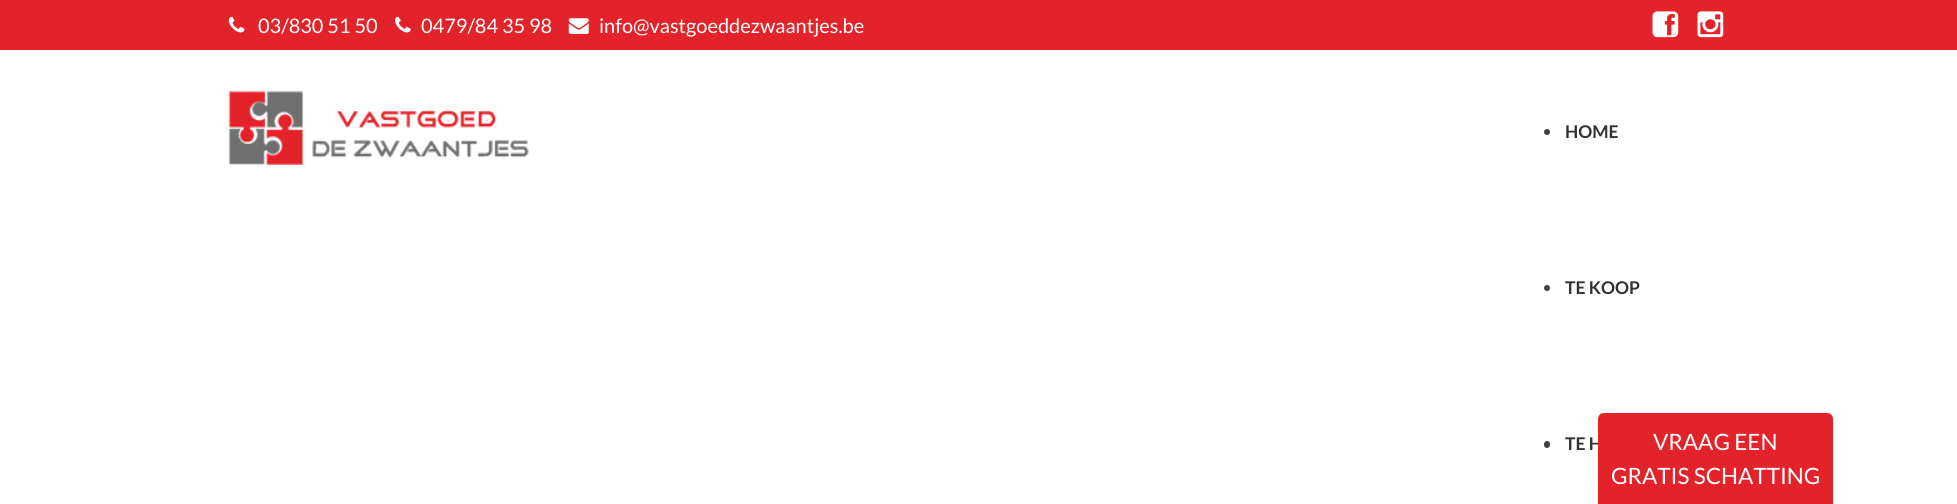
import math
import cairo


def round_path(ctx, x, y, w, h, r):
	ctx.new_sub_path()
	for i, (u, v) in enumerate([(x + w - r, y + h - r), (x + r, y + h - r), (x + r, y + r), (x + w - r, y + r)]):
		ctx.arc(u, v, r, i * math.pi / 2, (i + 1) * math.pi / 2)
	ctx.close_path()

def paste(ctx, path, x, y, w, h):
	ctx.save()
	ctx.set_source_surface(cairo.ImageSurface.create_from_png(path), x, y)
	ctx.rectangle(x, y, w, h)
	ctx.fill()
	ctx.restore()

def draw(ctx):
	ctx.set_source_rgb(1, 1, 1)
	ctx.paint()
	ctx.set_source_rgb(0.894, 0.133, 0.161)
	ctx.rectangle(0, 0, 1957, 50)
	ctx.fill()
	paste(ctx, 'media/1.png', 228, 16, 17, 17)
	ctx.select_font_face('Lato')
	ctx.set_font_size(20)
	ctx.set_source_rgb(1, 1, 1)
	ctx.move_to(258, 33)
	ctx.show_text('03/830 51 50')
	paste(ctx, 'media/2.png', 395, 16, 16, 17)
	ctx.move_to(421, 33)
	ctx.show_text('0479/84 35 98')
	paste(ctx, 'media/3.png', 568, 18, 21, 16)
	ctx.move_to(599, 33)
	ctx.show_text('info@vastgoeddezwaantjes.be')
	paste(ctx, 'media/4.png', 1652, 11, 27, 27)
	paste(ctx, 'media/5.png', 1697, 11, 27, 27)
	paste(ctx, 'media/6.png', 228, 91, 301, 74)
	ctx.set_source_rgb(0.259, 0.259, 0.259)
	ctx.arc(1547, 132, 3, 0, 2 * math.pi)
	ctx.fill()
	ctx.select_font_face('Lato', cairo.FONT_SLANT_NORMAL, cairo.FONT_WEIGHT_BOLD)
	ctx.set_font_size(17.5)
	ctx.set_source_rgb(0.196, 0.196, 0.196)
	ctx.move_to(1565, 138)
	ctx.show_text('HOME')
	ctx.set_source_rgb(0.259, 0.259, 0.259)
	ctx.new_path()
	ctx.arc(1547, 288, 3, 0, 2 * math.pi)
	ctx.fill()
	ctx.set_source_rgb(0.196, 0.196, 0.196)
	ctx.move_to(1565, 294)
	ctx.show_text('TE KOOP')
	ctx.set_source_rgb(0.259, 0.259, 0.259)
	round_path(ctx, 1544, 441, 6, 7, 3)
	ctx.fill()
	ctx.set_source_rgb(0.196, 0.196, 0.196)
	ctx.move_to(1565, 450)
	ctx.show_text('TE H')
	ctx.set_source_rgb(0.894, 0.133, 0.161)
	ctx.new_path()
	ctx.move_to(1604, 413)
	ctx.line_to(1827, 413)
	ctx.curve_to(1830.5, 413, 1833, 415.5, 1833, 419)
	ctx.line_to(1833, 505)
	ctx.line_to(1598, 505)
	ctx.line_to(1598, 419)
	ctx.curve_to(1598, 415.5, 1600.5, 413, 1604, 413)
	ctx.close_path()
	ctx.fill()
	ctx.select_font_face('Lato')
	ctx.set_font_size(22.5)
	ctx.set_source_rgb(1, 1, 1)
	ctx.move_to(1653, 450)
	ctx.show_text('VRAAG EEN')
	ctx.move_to(1611, 484)
	ctx.show_text('GRATIS SCHATTING')


surface = cairo.ImageSurface(cairo.FORMAT_RGB24, 1957, 504)
ctx = cairo.Context(surface)
options = cairo.FontOptions()
options.set_hint_metrics(cairo.HINT_METRICS_OFF)
options.set_hint_style(cairo.HINT_STYLE_NONE)
ctx.set_font_options(options)
ctx.set_miter_limit(4)
draw(ctx)
surface.write_to_png('image.png')
